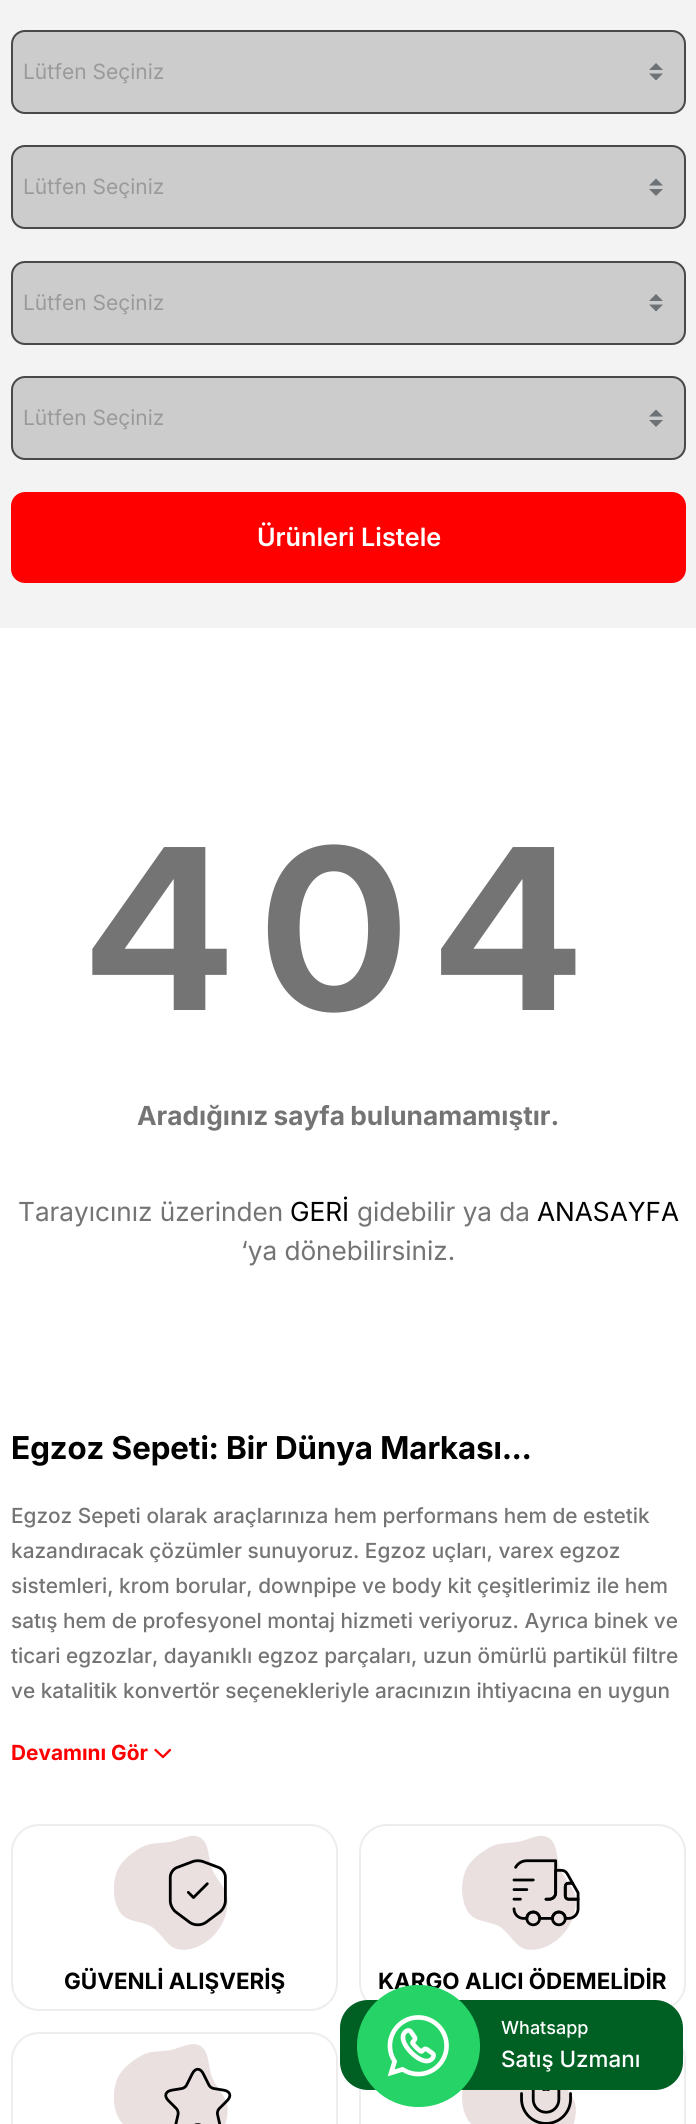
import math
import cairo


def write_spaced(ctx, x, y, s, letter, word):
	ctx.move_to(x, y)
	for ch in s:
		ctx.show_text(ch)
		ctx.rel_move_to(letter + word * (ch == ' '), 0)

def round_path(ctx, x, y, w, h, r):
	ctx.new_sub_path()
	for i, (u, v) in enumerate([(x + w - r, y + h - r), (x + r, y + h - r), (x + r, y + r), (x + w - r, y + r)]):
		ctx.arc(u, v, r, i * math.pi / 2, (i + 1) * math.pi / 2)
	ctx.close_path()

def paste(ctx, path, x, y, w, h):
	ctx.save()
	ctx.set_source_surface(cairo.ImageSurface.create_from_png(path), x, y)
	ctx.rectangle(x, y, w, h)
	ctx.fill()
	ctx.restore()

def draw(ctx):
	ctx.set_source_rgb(1, 1, 1)
	ctx.paint()
	ctx.set_source_rgb(0.953, 0.953, 0.953)
	ctx.rectangle(0, 0, 696, 628)
	ctx.fill()
	ctx.set_source_rgb(0.8, 0.8, 0.8)
	round_path(ctx, 11, 30, 675, 84, 14)
	ctx.fill()
	ctx.set_source_rgb(0.427, 0.447, 0.463)
	ctx.new_path()
	ctx.move_to(656, 63)
	ctx.line_to(649, 70)
	ctx.line_to(663, 70)
	ctx.close_path()
	ctx.move_to(656, 80.5)
	ctx.line_to(649, 73.5)
	ctx.line_to(663, 73.5)
	ctx.close_path()
	ctx.fill()
	round_path(ctx, 12, 31, 673, 82, 13)
	ctx.set_source_rgb(0.286, 0.286, 0.286)
	ctx.stroke()
	ctx.select_font_face('Inter')
	ctx.set_font_size(21)
	ctx.set_source_rgb(0.604, 0.604, 0.604)
	ctx.move_to(23, 79)
	ctx.show_text('Lütfen Seçiniz')
	ctx.set_source_rgb(0.8, 0.8, 0.8)
	round_path(ctx, 11, 145, 675, 84, 14)
	ctx.fill()
	ctx.set_source_rgb(0.427, 0.447, 0.463)
	ctx.new_path()
	ctx.move_to(656, 178.5)
	ctx.line_to(649, 185.5)
	ctx.line_to(663, 185.5)
	ctx.close_path()
	ctx.move_to(656, 196)
	ctx.line_to(649, 189)
	ctx.line_to(663, 189)
	ctx.close_path()
	ctx.fill()
	round_path(ctx, 12, 146, 673, 82, 13)
	ctx.set_source_rgb(0.286, 0.286, 0.286)
	ctx.stroke()
	ctx.set_source_rgb(0.604, 0.604, 0.604)
	ctx.move_to(23, 194)
	ctx.show_text('Lütfen Seçiniz')
	ctx.set_source_rgb(0.8, 0.8, 0.8)
	round_path(ctx, 11, 261, 675, 84, 14)
	ctx.fill()
	ctx.set_source_rgb(0.427, 0.447, 0.463)
	ctx.new_path()
	ctx.move_to(656, 294)
	ctx.line_to(649, 301)
	ctx.line_to(663, 301)
	ctx.close_path()
	ctx.move_to(656, 311.5)
	ctx.line_to(649, 304.5)
	ctx.line_to(663, 304.5)
	ctx.close_path()
	ctx.fill()
	round_path(ctx, 12, 262, 673, 82, 13)
	ctx.set_source_rgb(0.286, 0.286, 0.286)
	ctx.stroke()
	ctx.set_source_rgb(0.604, 0.604, 0.604)
	ctx.move_to(23, 310)
	ctx.show_text('Lütfen Seçiniz')
	ctx.set_source_rgb(0.8, 0.8, 0.8)
	round_path(ctx, 11, 376, 675, 84, 14)
	ctx.fill()
	ctx.set_source_rgb(0.427, 0.447, 0.463)
	ctx.new_path()
	ctx.move_to(656, 409.5)
	ctx.line_to(649, 416.5)
	ctx.line_to(663, 416.5)
	ctx.close_path()
	ctx.move_to(656, 427)
	ctx.line_to(649, 420)
	ctx.line_to(663, 420)
	ctx.close_path()
	ctx.fill()
	round_path(ctx, 12, 377, 673, 82, 13)
	ctx.set_source_rgb(0.286, 0.286, 0.286)
	ctx.stroke()
	ctx.set_source_rgb(0.604, 0.604, 0.604)
	ctx.move_to(23, 425)
	ctx.show_text('Lütfen Seçiniz')
	ctx.set_source_rgb(1, 0, 0)
	round_path(ctx, 11, 492, 675, 91, 14)
	ctx.fill()
	ctx.select_font_face('Inter SemiBold')
	ctx.set_font_size(25.25)
	ctx.set_source_rgb(1, 1, 1)
	ctx.move_to(257, 546)
	ctx.show_text('Ürünleri Listele')
	ctx.select_font_face('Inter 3', cairo.FONT_SLANT_NORMAL, cairo.FONT_WEIGHT_BOLD)
	ctx.set_font_size(224)
	ctx.set_source_rgb(0.455, 0.455, 0.455)
	write_spaced(ctx, 86, 1010, '404', 28, 0)
	ctx.select_font_face('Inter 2', cairo.FONT_SLANT_NORMAL, cairo.FONT_WEIGHT_BOLD)
	ctx.set_font_size(26.25)
	write_spaced(ctx, 137, 1125, 'Aradığınız sayfa bulunamamıştır.', 0, -1)
	ctx.select_font_face('Inter 2')
	ctx.move_to(18, 1221)
	ctx.show_text('Tarayıcınız üzerinden')
	ctx.set_source_rgb(0, 0, 0)
	ctx.move_to(290, 1221)
	ctx.show_text('GER')
	ctx.select_font_face('Inter')
	ctx.move_to(342, 1221)
	ctx.show_text('İ')
	ctx.select_font_face('Inter 2')
	ctx.set_source_rgb(0.455, 0.455, 0.455)
	ctx.move_to(357, 1221)
	ctx.show_text('gidebilir ya da')
	ctx.set_source_rgb(0, 0, 0)
	ctx.move_to(537, 1221)
	ctx.show_text('ANASAYFA')
	ctx.set_source_rgb(0.455, 0.455, 0.455)
	ctx.move_to(241, 1260)
	ctx.show_text('‘ya dönebilirsiniz.')
	ctx.select_font_face('Inter', cairo.FONT_SLANT_NORMAL, cairo.FONT_WEIGHT_BOLD)
	ctx.set_font_size(31.5)
	ctx.set_source_rgb(0, 0, 0)
	ctx.move_to(11, 1459)
	ctx.show_text('Egzoz Sepeti: Bir Dünya Markası...')
	ctx.select_font_face('Inter Medium')
	ctx.set_font_size(20.8)
	ctx.set_source_rgb(0.455, 0.455, 0.455)
	for x, y, s in [
		(11, 1523, 'Egzoz Sepeti olarak araçlarınıza hem performans hem de estetik'),
		(11, 1558, 'kazandıracak çözümler sunuyoruz. Egzoz uçları, varex egzoz'),
		(11, 1593, 'sistemleri, krom borular, downpipe ve body kit çeşitlerimiz ile hem'),
		(11, 1628, 'satış hem de profesyonel montaj hizmeti veriyoruz. Ayrıca binek ve'),
	]:
		ctx.move_to(x, y)
		ctx.show_text(s)
	ctx.save()
	ctx.rectangle(11, 1500, 675, 208)
	ctx.clip()
	ctx.move_to(11, 1663)
	ctx.show_text('ticari egzozlar, dayanıklı egzoz parçaları, uzun ömürlü partikül filtre')
	ctx.restore()
	ctx.move_to(11, 1698)
	ctx.show_text('ve katalitik konvertör seçenekleriyle aracınızın ihtiyacına en uygun')
	ctx.select_font_face('Inter 2', cairo.FONT_SLANT_NORMAL, cairo.FONT_WEIGHT_BOLD)
	ctx.set_source_rgb(1, 0, 0)
	ctx.move_to(11, 1760)
	ctx.show_text('Devamını Gör')
	ctx.new_path()
	ctx.move_to(170, 1750)
	ctx.line_to(163, 1757)
	ctx.line_to(155.5, 1750)
	ctx.set_line_width(2.3)
	ctx.set_line_cap(cairo.LINE_CAP_ROUND)
	ctx.set_line_join(cairo.LINE_JOIN_ROUND)
	ctx.stroke()
	round_path(ctx, 12, 1825, 325, 185, 27)
	ctx.set_source_rgb(0.929, 0.929, 0.929)
	ctx.set_line_width(2)
	ctx.set_line_cap(cairo.LINE_CAP_BUTT)
	ctx.set_line_join(cairo.LINE_JOIN_MITER)
	ctx.stroke()
	paste(ctx, 'media/1.png', 114, 1835, 114, 115)
	ctx.set_font_size(22.4)
	ctx.set_source_rgb(0, 0, 0)
	ctx.move_to(64, 1989)
	ctx.show_text('GÜVENLİ ALIŞVERİŞ')
	round_path(ctx, 360, 1825, 325, 185, 27)
	ctx.set_source_rgb(0.929, 0.929, 0.929)
	ctx.stroke()
	paste(ctx, 'media/2.png', 462, 1835, 118, 115)
	ctx.set_source_rgb(0, 0, 0)
	ctx.move_to(378, 1989)
	ctx.show_text('KARGO ALICI ÖDEMELİDİR')
	round_path(ctx, 12, 2033, 325, 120, 27)
	ctx.set_source_rgb(0.929, 0.929, 0.929)
	ctx.stroke()
	paste(ctx, 'media/3.png', 114, 2044, 118, 80)
	round_path(ctx, 360, 2033, 325, 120, 27)
	ctx.stroke()
	paste(ctx, 'media/4.png', 462, 2090, 114, 34)
	ctx.set_source_rgb(0, 0.376, 0.141)
	round_path(ctx, 340, 2000, 343, 90, 28)
	ctx.fill()
	ctx.set_source_rgb(0.145, 0.827, 0.4)
	round_path(ctx, 357, 1985, 123, 122, 61)
	ctx.fill()
	paste(ctx, 'media/5.png', 387, 2015, 62, 62)
	ctx.select_font_face('Inter Medium')
	ctx.set_font_size(18)
	ctx.set_source_rgb(1, 1, 1)
	ctx.move_to(501, 2034)
	ctx.show_text('Whatsapp')
	ctx.set_font_size(22.4)
	ctx.move_to(501, 2067)
	ctx.show_text('Satış Uzmanı')


surface = cairo.ImageSurface(cairo.FORMAT_RGB24, 696, 2124)
ctx = cairo.Context(surface)
options = cairo.FontOptions()
options.set_hint_metrics(cairo.HINT_METRICS_OFF)
options.set_hint_style(cairo.HINT_STYLE_NONE)
ctx.set_font_options(options)
ctx.set_miter_limit(4)
draw(ctx)
surface.write_to_png('image.png')
